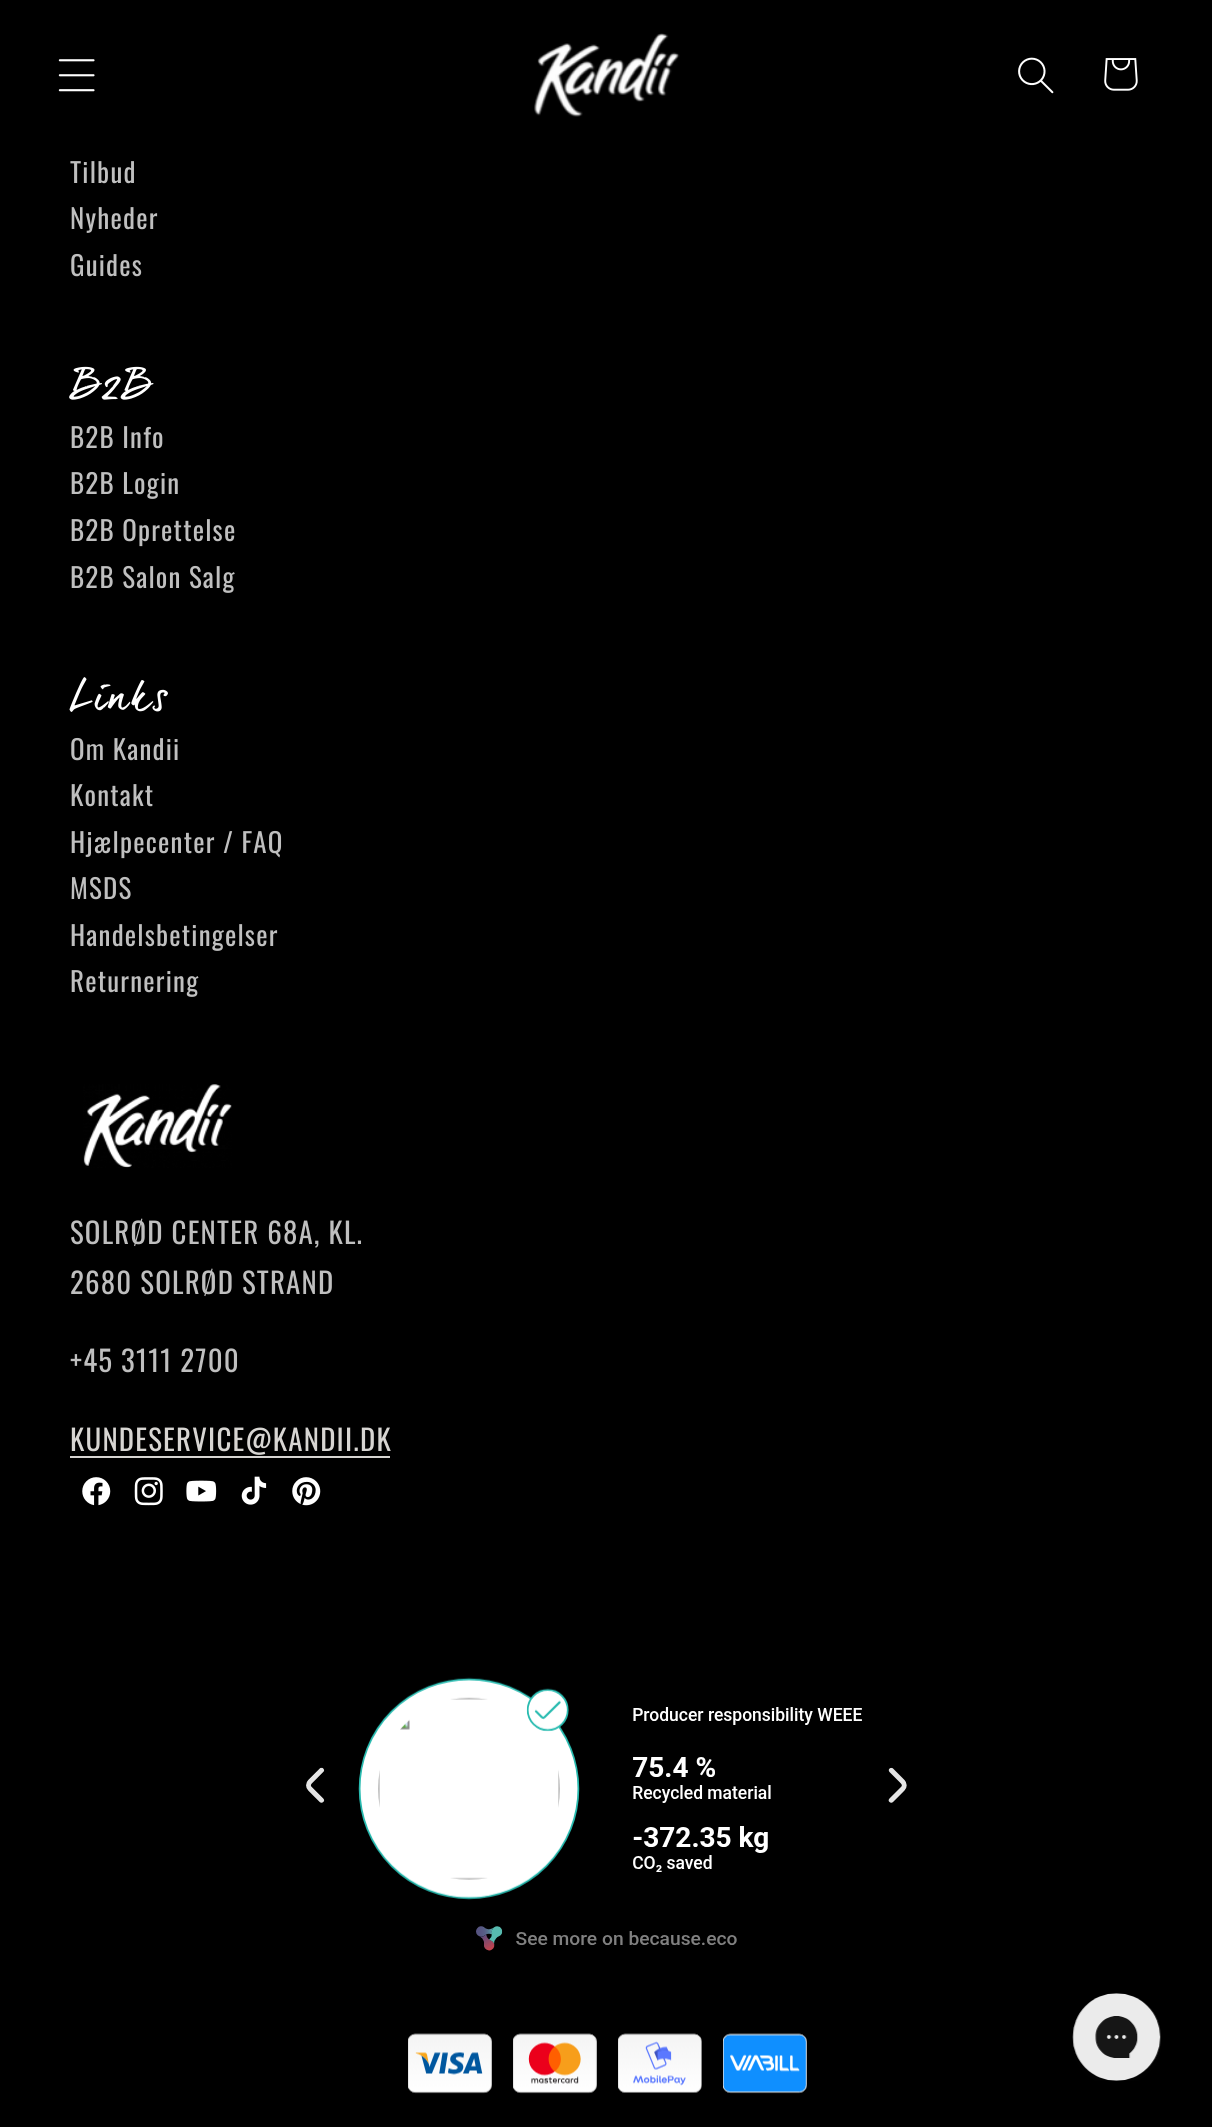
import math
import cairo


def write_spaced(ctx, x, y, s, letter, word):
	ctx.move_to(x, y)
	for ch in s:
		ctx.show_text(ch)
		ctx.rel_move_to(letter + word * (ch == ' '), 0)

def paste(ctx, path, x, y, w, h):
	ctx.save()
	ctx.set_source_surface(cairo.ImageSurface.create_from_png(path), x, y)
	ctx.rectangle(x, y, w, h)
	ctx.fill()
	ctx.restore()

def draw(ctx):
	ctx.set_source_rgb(0, 0, 0)
	ctx.paint()
	paste(ctx, 'media/1.png', 58, 59, 37, 33)
	paste(ctx, 'media/2.png', 534, 33, 146, 84)
	paste(ctx, 'media/3.png', 1018, 57, 36, 37)
	paste(ctx, 'media/4.png', 1104, 58, 34, 33)
	ctx.select_font_face('Oswald')
	ctx.set_font_size(27)
	ctx.set_source_rgb(0.749, 0.749, 0.749)
	for x, y, s in [
		(70, 183, 'Tilbud'),
		(70, 229, 'Nyheder'),
		(70, 276, 'Guides'),
	]:
		write_spaced(ctx, x, y, s, 1.2, 0)
	ctx.select_font_face('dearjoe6')
	ctx.set_font_size(39)
	ctx.set_source_rgb(1, 1, 1)
	write_spaced(ctx, 70, 398, 'B2B', 1.5, 0)
	ctx.select_font_face('Oswald')
	ctx.set_font_size(27)
	ctx.set_source_rgb(0.749, 0.749, 0.749)
	for x, y, s in [
		(70, 448, 'B2B Info'),
		(70, 494, 'B2B Login'),
		(70, 541, 'B2B Oprettelse'),
		(70, 588, 'B2B Salon Salg'),
	]:
		write_spaced(ctx, x, y, s, 1.2, 0)
	ctx.select_font_face('dearjoe6')
	ctx.set_font_size(39)
	ctx.set_source_rgb(1, 1, 1)
	write_spaced(ctx, 70, 709, 'Links', 1.5, 0)
	ctx.select_font_face('Oswald')
	ctx.set_font_size(27)
	ctx.set_source_rgb(0.749, 0.749, 0.749)
	for x, y, s in [
		(70, 760, 'Om Kandii'),
		(70, 806, 'Kontakt'),
		(70, 853, 'Hjælpecenter / FAQ'),
		(70, 899, 'MSDS'),
		(70, 946, 'Handelsbetingelser'),
		(70, 992, 'Returnering'),
	]:
		write_spaced(ctx, x, y, s, 1.2, 0)
	paste(ctx, 'media/5.png', 83, 1084, 149, 84)
	ctx.set_font_size(28.9)
	for x, y, s in [
		(70, 1244, 'SOLRØD CENTER 68A, KL.'),
		(70, 1294, '2680 SOLRØD STRAND'),
		(70, 1372, '+45 3111 2700'),
	]:
		write_spaced(ctx, x, y, s, 1.2, 0)
	ctx.set_source_rgb(0.843, 0.835, 0.824)
	write_spaced(ctx, 70, 1451, 'KUNDESERVICE@KANDII.DK', 1.2, 0)
	ctx.rectangle(70, 1456, 320, 2)
	ctx.fill()
	paste(ctx, 'media/6.png', 82, 1477, 29, 29)
	paste(ctx, 'media/7.png', 134, 1477, 29, 29)
	paste(ctx, 'media/8.png', 186, 1480, 31, 22)
	paste(ctx, 'media/9.png', 241, 1476, 26, 29)
	paste(ctx, 'media/10.png', 292, 1477, 29, 29)
	paste(ctx, 'media/11.png', 306, 1677, 601, 274)
	paste(ctx, 'media/12.png', 408, 2033, 399, 61)
	paste(ctx, 'media/13.png', 1072, 1993, 89, 88)


surface = cairo.ImageSurface(cairo.FORMAT_RGB24, 1212, 2127)
ctx = cairo.Context(surface)
options = cairo.FontOptions()
options.set_hint_metrics(cairo.HINT_METRICS_OFF)
options.set_hint_style(cairo.HINT_STYLE_NONE)
ctx.set_font_options(options)
ctx.set_miter_limit(4)
draw(ctx)
surface.write_to_png('image.png')
